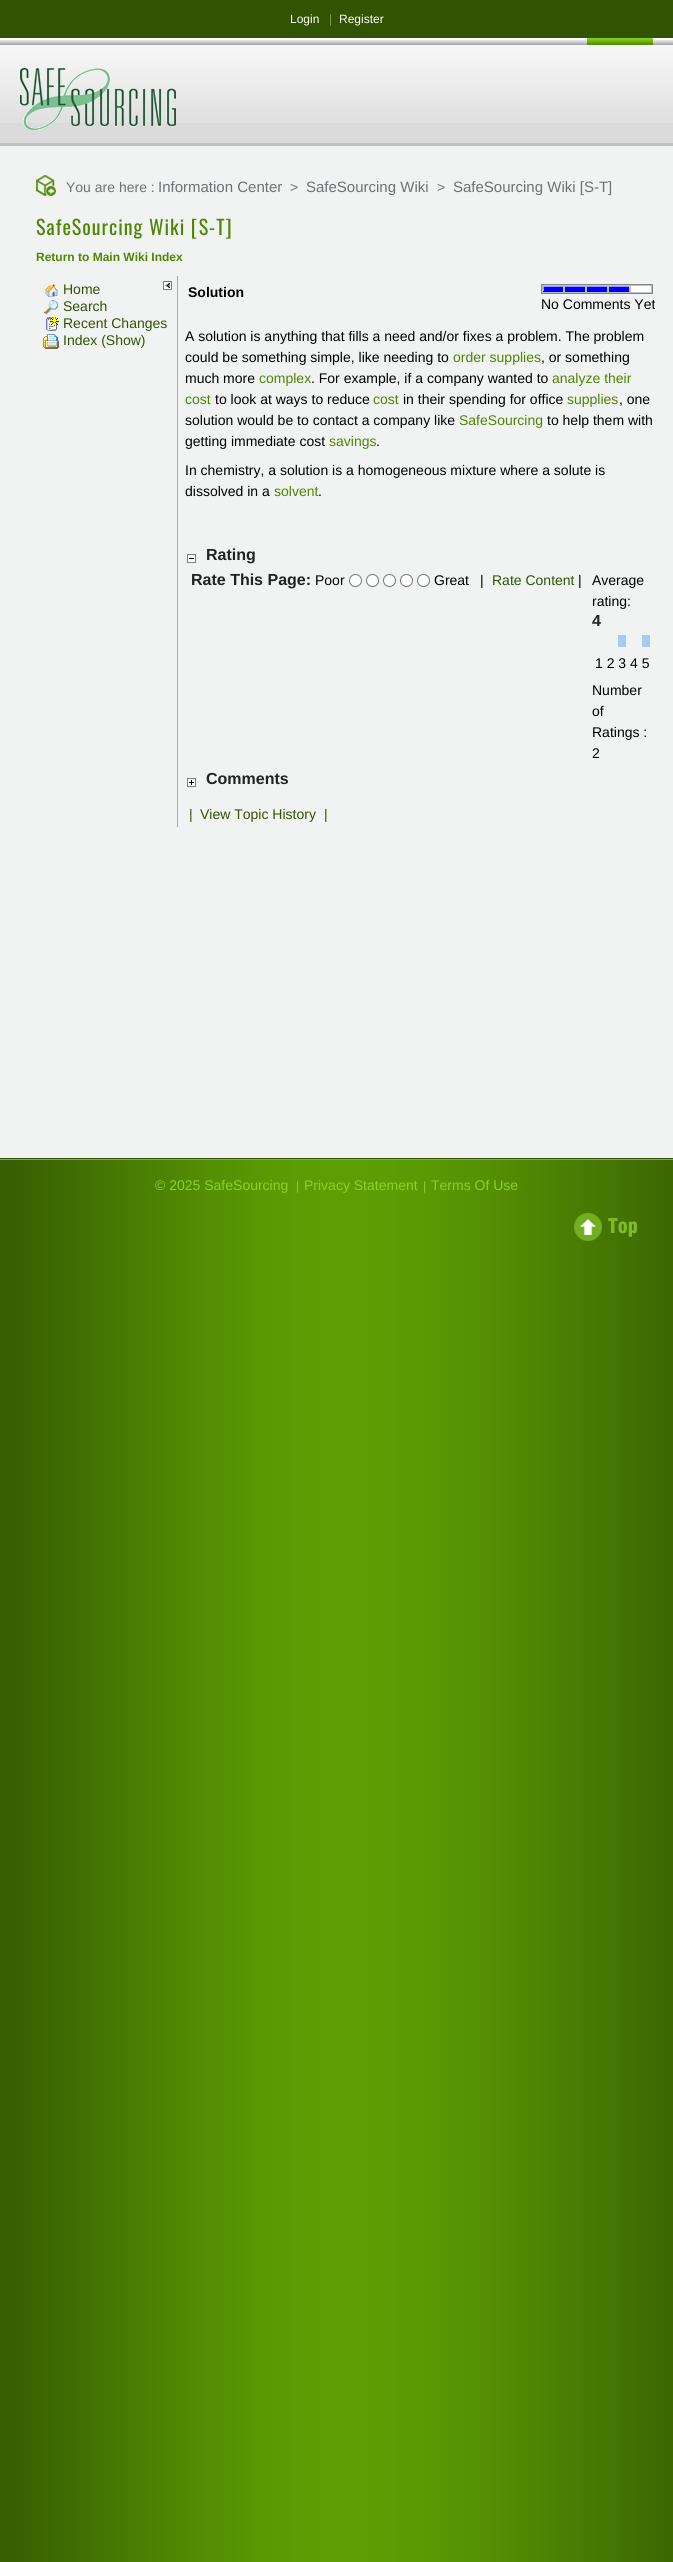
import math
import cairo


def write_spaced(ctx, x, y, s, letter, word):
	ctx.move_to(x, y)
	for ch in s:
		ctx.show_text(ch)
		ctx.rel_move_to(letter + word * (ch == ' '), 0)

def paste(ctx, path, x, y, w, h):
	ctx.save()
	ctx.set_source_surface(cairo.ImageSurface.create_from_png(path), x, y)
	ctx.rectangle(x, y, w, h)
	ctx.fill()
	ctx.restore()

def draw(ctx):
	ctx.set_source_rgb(1, 1, 1)
	ctx.paint()
	paste(ctx, 'media/1.png', 0, 1160, 673, 1402)
	ctx.set_source_rgb(0.192, 0.329, 0.008)
	ctx.rectangle(0, 0, 673, 38)
	ctx.fill()
	ctx.select_font_face('Liberation Sans')
	ctx.set_font_size(12)
	ctx.set_source_rgb(1, 1, 1)
	ctx.move_to(290, 23)
	ctx.show_text('Login')
	ctx.set_source_rgb(0.439, 0.651, 0.157)
	ctx.move_to(329, 23)
	ctx.show_text('|')
	ctx.set_source_rgb(1, 1, 1)
	ctx.move_to(339, 23)
	ctx.show_text('Register')
	ctx.set_source_rgb(0.859, 0.859, 0.859)
	ctx.rectangle(0, 123, 673, 20)
	ctx.fill()
	paste(ctx, 'media/2.png', 0, 38, 673, 85)
	paste(ctx, 'media/3.png', 587, 38, 66, 7)
	paste(ctx, 'media/4.png', 20, 68, 156, 62)
	ctx.set_source_rgb(0.945, 0.949, 0.949)
	ctx.rectangle(0, 146, 673, 1012)
	ctx.fill()
	ctx.set_source_rgb(0.757, 0.761, 0.769)
	ctx.rectangle(0, 143, 673, 3)
	ctx.fill()
	paste(ctx, 'media/5.png', 36, 175, 20, 21)
	ctx.set_font_size(14)
	ctx.set_source_rgb(0.424, 0.447, 0.455)
	ctx.move_to(66, 192)
	ctx.show_text('You are here :')
	ctx.set_font_size(15)
	ctx.move_to(158, 192)
	ctx.show_text('Information Center')
	ctx.set_font_size(14)
	ctx.move_to(290, 192)
	ctx.show_text('>')
	ctx.set_font_size(15)
	ctx.move_to(306, 192)
	ctx.show_text('SafeSourcing Wiki')
	ctx.set_font_size(14)
	ctx.move_to(437, 192)
	ctx.show_text('>')
	ctx.set_font_size(15)
	ctx.move_to(453, 192)
	ctx.show_text('SafeSourcing Wiki [S-T]')
	ctx.select_font_face('Oswald')
	ctx.set_font_size(20)
	ctx.set_source_rgb(0.31, 0.525, 0.012)
	write_spaced(ctx, 36, 235, 'SafeSourcing Wiki [S-T]', 1, 0)
	ctx.select_font_face('Liberation Sans', cairo.FONT_SLANT_NORMAL, cairo.FONT_WEIGHT_BOLD)
	ctx.set_font_size(12)
	ctx.move_to(36, 261)
	ctx.show_text('Return to Main Wiki Index')
	paste(ctx, 'media/6.png', 45, 284, 13, 13)
	ctx.select_font_face('Liberation Sans')
	ctx.set_font_size(14)
	ctx.set_source_rgb(0.192, 0.329, 0.008)
	ctx.move_to(63, 294)
	ctx.show_text('Home')
	paste(ctx, 'media/7.png', 44, 300, 14, 14)
	ctx.move_to(63, 311)
	ctx.show_text('Search')
	paste(ctx, 'media/8.png', 43, 316, 16, 15)
	ctx.move_to(63, 328)
	ctx.show_text('Recent Changes')
	paste(ctx, 'media/9.png', 43, 334, 16, 15)
	ctx.move_to(63, 345)
	ctx.show_text('Index (Show)')
	ctx.set_source_rgb(0.663, 0.663, 0.663)
	ctx.rectangle(177, 276, 1, 551)
	ctx.fill()
	paste(ctx, 'media/10.png', 163, 281, 9, 9)
	ctx.select_font_face('Liberation Sans', cairo.FONT_SLANT_NORMAL, cairo.FONT_WEIGHT_BOLD)
	ctx.set_source_rgb(0, 0, 0)
	ctx.move_to(188, 297)
	ctx.show_text('Solution')
	paste(ctx, 'media/11.png', 541, 284, 112, 10)
	ctx.select_font_face('Liberation Sans')
	for x, y, s in [
		(541, 309, 'No Comments Yet'),
		(185, 341, 'A solution is anything that fills a need and/or fixes a problem. The problem'),
		(185, 362, 'could be something simple, like needing to'),
	]:
		ctx.move_to(x, y)
		ctx.show_text(s)
	ctx.set_source_rgb(0.31, 0.525, 0.012)
	ctx.move_to(453, 362)
	ctx.show_text('order supplies')
	ctx.set_source_rgb(0, 0, 0)
	ctx.move_to(541, 362)
	ctx.show_text(', or something')
	ctx.move_to(185, 383)
	ctx.show_text('much more')
	ctx.set_source_rgb(0.31, 0.525, 0.012)
	ctx.move_to(259, 383)
	ctx.show_text('complex')
	ctx.set_source_rgb(0, 0, 0)
	ctx.move_to(311, 383)
	ctx.show_text('. For example, if a company wanted to')
	ctx.set_source_rgb(0.31, 0.525, 0.012)
	ctx.move_to(552, 383)
	ctx.show_text('analyze their')
	ctx.move_to(185, 404)
	ctx.show_text('cost')
	ctx.set_source_rgb(0, 0, 0)
	ctx.move_to(215, 404)
	ctx.show_text('to look at ways to reduce')
	ctx.set_source_rgb(0.31, 0.525, 0.012)
	ctx.move_to(373, 404)
	ctx.show_text('cost')
	ctx.set_source_rgb(0, 0, 0)
	ctx.move_to(403, 404)
	ctx.show_text('in their spending for office')
	ctx.set_source_rgb(0.31, 0.525, 0.012)
	ctx.move_to(567, 404)
	ctx.show_text('supplies')
	ctx.set_source_rgb(0, 0, 0)
	ctx.move_to(619, 404)
	ctx.show_text(', one')
	ctx.move_to(185, 425)
	ctx.show_text('solution would be to contact a company like')
	ctx.set_source_rgb(0.31, 0.525, 0.012)
	ctx.move_to(459, 425)
	ctx.show_text('SafeSourcing')
	ctx.set_source_rgb(0, 0, 0)
	ctx.move_to(547, 425)
	ctx.show_text('to help them with')
	ctx.move_to(185, 446)
	ctx.show_text('getting immediate cost')
	ctx.set_source_rgb(0.31, 0.525, 0.012)
	ctx.move_to(329, 446)
	ctx.show_text('savings')
	ctx.set_source_rgb(0, 0, 0)
	for x, y, s in [
		(376, 446, '.'),
		(185, 475, 'In chemistry, a solution is a homogeneous mixture where a solute is'),
		(185, 496, 'dissolved in a'),
	]:
		ctx.move_to(x, y)
		ctx.show_text(s)
	ctx.set_source_rgb(0.31, 0.525, 0.012)
	ctx.move_to(274, 496)
	ctx.show_text('solvent')
	ctx.set_source_rgb(0, 0, 0)
	ctx.move_to(318, 496)
	ctx.show_text('.')
	paste(ctx, 'media/12.png', 187, 554, 9, 9)
	ctx.select_font_face('Liberation Sans', cairo.FONT_SLANT_NORMAL, cairo.FONT_WEIGHT_BOLD)
	ctx.set_font_size(16)
	ctx.set_source_rgb(0.133, 0.133, 0.133)
	ctx.move_to(206, 560)
	ctx.show_text('Rating')
	ctx.move_to(191, 585)
	ctx.show_text('Rate This Page:')
	ctx.select_font_face('Liberation Sans')
	ctx.set_font_size(14)
	ctx.set_source_rgb(0, 0, 0)
	ctx.move_to(315, 585)
	ctx.show_text('Poor')
	ctx.set_source_rgb(1, 1, 1)
	ctx.new_path()
	ctx.arc(355.5, 580.5, 6, 0, 2 * math.pi)
	ctx.fill_preserve()
	ctx.set_source_rgb(0.463, 0.463, 0.463)
	ctx.set_line_width(1)
	ctx.stroke()
	ctx.set_source_rgb(1, 1, 1)
	ctx.arc(372.5, 580.5, 6, 0, 2 * math.pi)
	ctx.fill_preserve()
	ctx.set_source_rgb(0.463, 0.463, 0.463)
	ctx.stroke()
	ctx.set_source_rgb(1, 1, 1)
	ctx.arc(389.5, 580.5, 6, 0, 2 * math.pi)
	ctx.fill_preserve()
	ctx.set_source_rgb(0.463, 0.463, 0.463)
	ctx.stroke()
	ctx.set_source_rgb(1, 1, 1)
	ctx.arc(406.5, 580.5, 6, 0, 2 * math.pi)
	ctx.fill_preserve()
	ctx.set_source_rgb(0.463, 0.463, 0.463)
	ctx.stroke()
	ctx.set_source_rgb(1, 1, 1)
	ctx.arc(423.5, 580.5, 6, 0, 2 * math.pi)
	ctx.fill_preserve()
	ctx.set_source_rgb(0.463, 0.463, 0.463)
	ctx.stroke()
	ctx.set_source_rgb(0, 0, 0)
	ctx.move_to(434, 585)
	ctx.show_text('Great')
	ctx.move_to(480, 585)
	ctx.show_text('|')
	ctx.set_source_rgb(0.192, 0.329, 0.008)
	ctx.move_to(492, 585)
	ctx.show_text('Rate Content')
	ctx.set_source_rgb(0, 0, 0)
	for x, y, s in [
		(578, 585, '|'),
		(592, 585, 'Average'),
		(592, 606, 'rating:'),
	]:
		ctx.move_to(x, y)
		ctx.show_text(s)
	ctx.select_font_face('Liberation Sans', cairo.FONT_SLANT_NORMAL, cairo.FONT_WEIGHT_BOLD)
	ctx.set_font_size(16)
	ctx.set_source_rgb(0.133, 0.133, 0.133)
	ctx.move_to(592, 626)
	ctx.show_text('4')
	ctx.set_source_rgb(0.651, 0.792, 0.941)
	ctx.rectangle(618, 635, 8, 12)
	ctx.fill()
	ctx.rectangle(642, 635, 8, 12)
	ctx.fill()
	ctx.select_font_face('Liberation Sans')
	ctx.set_font_size(14)
	ctx.set_source_rgb(0, 0, 0)
	for x, y, s in [
		(595, 668, '1 2 3 4 5'),
		(592, 695, 'Number'),
		(592, 716, 'of'),
		(592, 737, 'Ratings :'),
		(592, 758, '2'),
	]:
		ctx.move_to(x, y)
		ctx.show_text(s)
	paste(ctx, 'media/13.png', 187, 778, 9, 9)
	ctx.select_font_face('Liberation Sans', cairo.FONT_SLANT_NORMAL, cairo.FONT_WEIGHT_BOLD)
	ctx.set_font_size(16)
	ctx.set_source_rgb(0.133, 0.133, 0.133)
	ctx.move_to(206, 784)
	ctx.show_text('Comments')
	ctx.select_font_face('Liberation Sans')
	ctx.set_font_size(14)
	ctx.set_source_rgb(0.192, 0.329, 0.008)
	for x, y, s in [
		(189, 819, '|'),
		(200, 819, 'View Topic History'),
		(324, 819, '|'),
	]:
		ctx.move_to(x, y)
		ctx.show_text(s)
	ctx.set_source_rgb(0.192, 0.318, 0.016)
	ctx.rectangle(0, 1158, 673, 1)
	ctx.fill()
	ctx.set_source_rgb(0.463, 0.761, 0.047)
	ctx.rectangle(0, 1159, 673, 1)
	ctx.fill()
	ctx.set_source_rgb(0.529, 0.831, 0.11)
	ctx.move_to(155, 1190)
	ctx.show_text('© 2025 SafeSourcing')
	ctx.set_font_size(12)
	ctx.move_to(296, 1190)
	ctx.show_text('|')
	ctx.set_font_size(14)
	ctx.move_to(304, 1190)
	ctx.show_text('Privacy Statement')
	ctx.set_font_size(12)
	ctx.move_to(423, 1190)
	ctx.show_text('|')
	ctx.set_font_size(14)
	ctx.move_to(431, 1190)
	ctx.show_text('Terms Of Use')
	paste(ctx, 'media/14.png', 574, 1213, 63, 28)


surface = cairo.ImageSurface(cairo.FORMAT_RGB24, 673, 2562)
ctx = cairo.Context(surface)
options = cairo.FontOptions()
options.set_hint_metrics(cairo.HINT_METRICS_OFF)
options.set_hint_style(cairo.HINT_STYLE_NONE)
ctx.set_font_options(options)
ctx.set_miter_limit(4)
draw(ctx)
surface.write_to_png('image.png')
